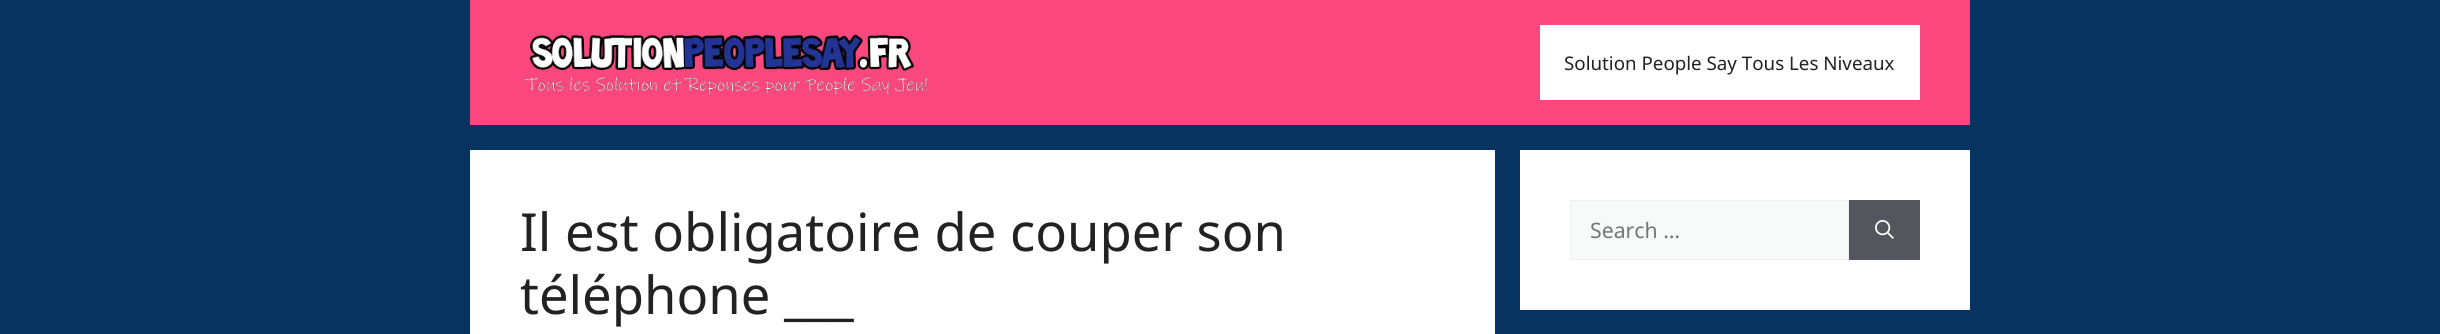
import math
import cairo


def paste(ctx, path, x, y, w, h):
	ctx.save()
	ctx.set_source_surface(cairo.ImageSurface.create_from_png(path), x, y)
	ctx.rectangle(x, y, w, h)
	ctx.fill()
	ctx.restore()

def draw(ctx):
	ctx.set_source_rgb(0.024, 0.2, 0.376)
	ctx.paint()
	ctx.set_source_rgb(0.98, 0.282, 0.494)
	ctx.rectangle(470, 0, 1500, 125)
	ctx.fill()
	paste(ctx, 'media/1.png', 524, 34, 404, 61)
	ctx.set_source_rgb(1, 1, 1)
	ctx.rectangle(1540, 25, 380, 75)
	ctx.fill()
	ctx.select_font_face('Noto Sans')
	ctx.set_font_size(18.75)
	ctx.set_source_rgb(0.133, 0.133, 0.133)
	ctx.move_to(1564, 70)
	ctx.show_text('Solution People Say Tous Les Niveaux')
	ctx.set_source_rgb(1, 1, 1)
	ctx.rectangle(470, 150, 1025, 184)
	ctx.fill()
	ctx.set_font_size(52.5)
	ctx.set_source_rgb(0.133, 0.133, 0.133)
	ctx.move_to(520, 251)
	ctx.show_text('Il est obligatoire de couper son')
	ctx.move_to(520, 314)
	ctx.show_text('téléphone ___')
	ctx.set_source_rgb(1, 1, 1)
	ctx.rectangle(1520, 150, 450, 160)
	ctx.fill()
	ctx.set_source_rgb(0.969, 0.973, 0.976)
	ctx.rectangle(1570.5, 200.5, 278, 59)
	ctx.fill_preserve()
	ctx.set_source_rgb(0.941, 0.941, 0.941)
	ctx.set_line_width(1)
	ctx.stroke()
	ctx.set_font_size(21.25)
	ctx.set_source_rgb(0.459, 0.459, 0.459)
	ctx.move_to(1590, 238)
	ctx.show_text('Search …')
	ctx.set_source_rgb(0.333, 0.333, 0.369)
	ctx.rectangle(1849, 200, 71, 60)
	ctx.fill()
	paste(ctx, 'media/2.png', 1875, 220, 19, 19)


surface = cairo.ImageSurface(cairo.FORMAT_RGB24, 2440, 334)
ctx = cairo.Context(surface)
options = cairo.FontOptions()
options.set_hint_metrics(cairo.HINT_METRICS_OFF)
options.set_hint_style(cairo.HINT_STYLE_NONE)
ctx.set_font_options(options)
ctx.set_miter_limit(4)
draw(ctx)
surface.write_to_png('image.png')
